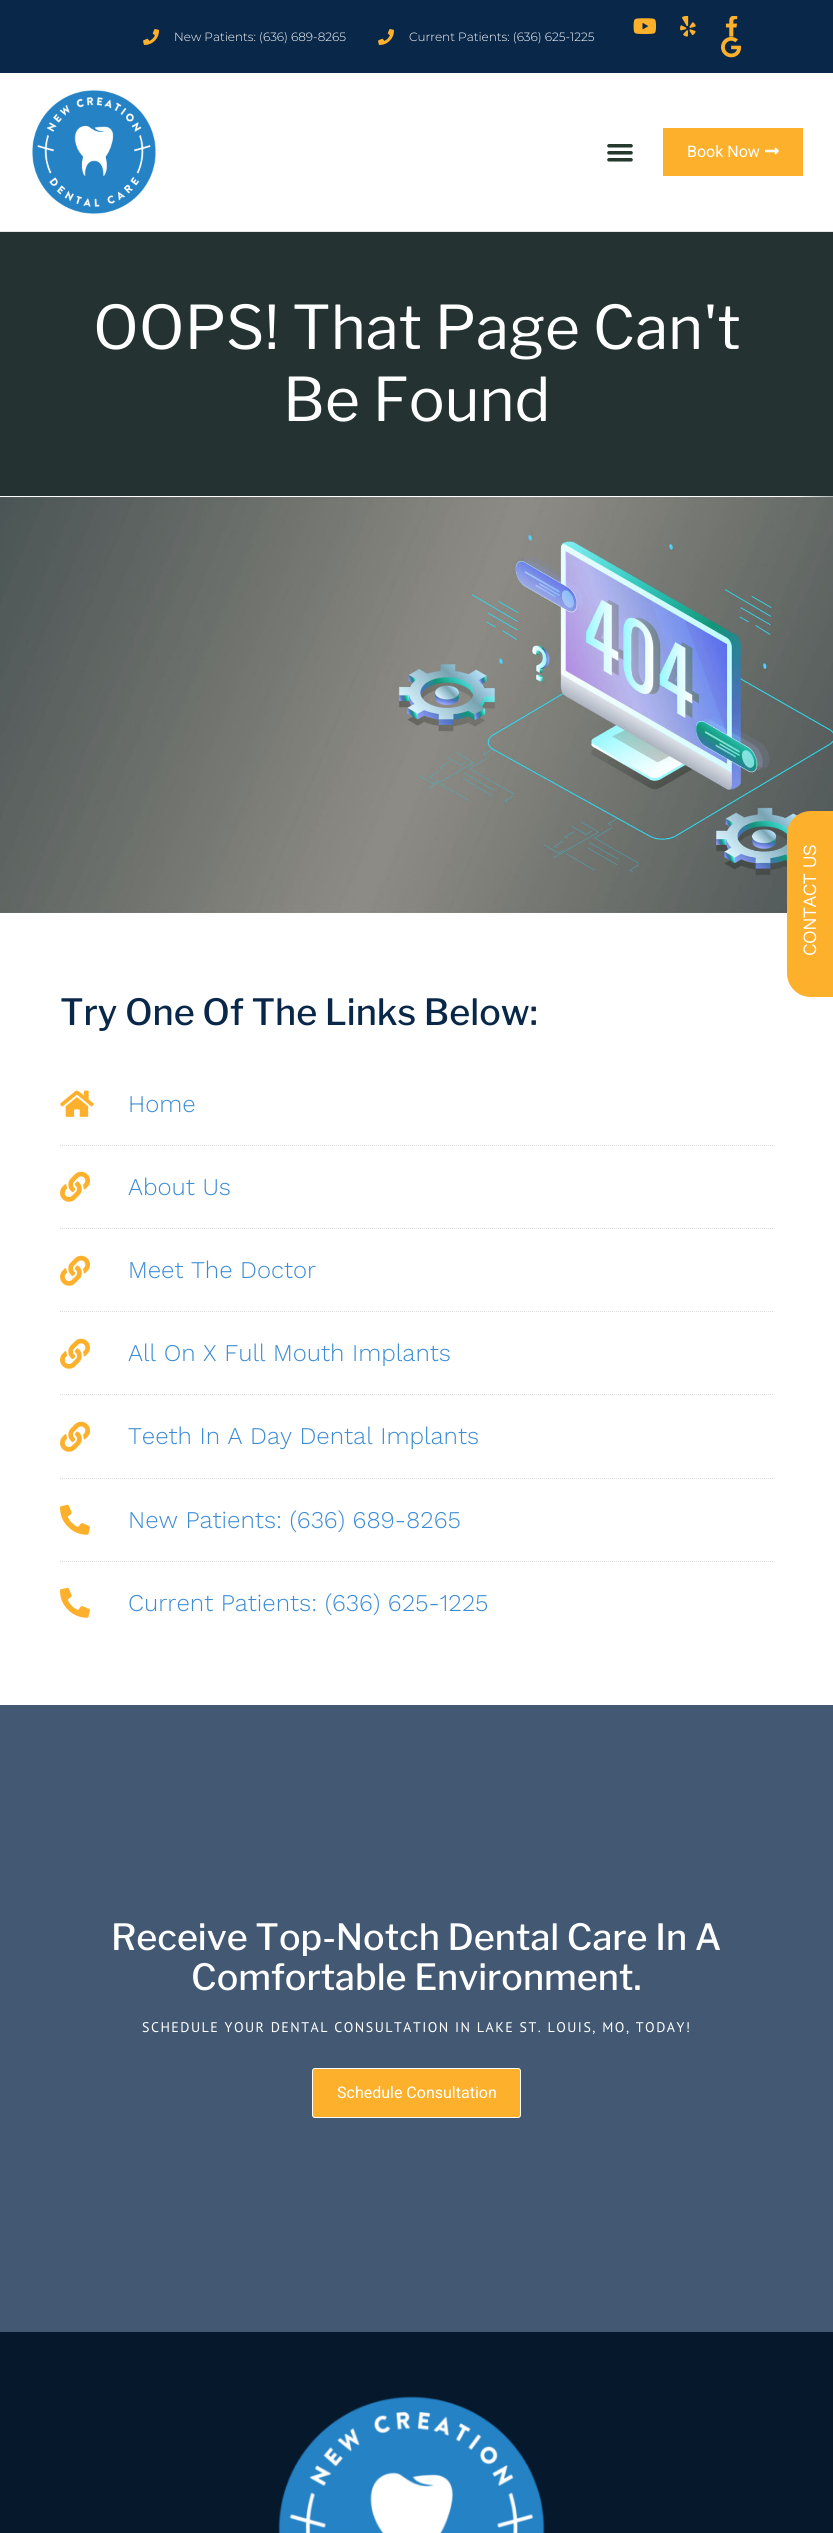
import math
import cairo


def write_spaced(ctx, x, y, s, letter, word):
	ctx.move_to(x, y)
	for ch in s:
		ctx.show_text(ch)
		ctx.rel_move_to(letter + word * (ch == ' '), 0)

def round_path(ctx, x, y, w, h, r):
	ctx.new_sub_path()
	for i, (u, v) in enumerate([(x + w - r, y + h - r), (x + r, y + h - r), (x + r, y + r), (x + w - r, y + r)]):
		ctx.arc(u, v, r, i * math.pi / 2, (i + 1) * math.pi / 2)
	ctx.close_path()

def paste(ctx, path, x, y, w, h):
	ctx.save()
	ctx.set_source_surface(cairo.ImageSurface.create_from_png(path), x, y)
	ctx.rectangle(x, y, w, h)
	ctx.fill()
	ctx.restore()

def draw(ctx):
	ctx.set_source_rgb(1, 1, 1)
	ctx.paint()
	ctx.set_source_rgb(0.039, 0.153, 0.286)
	ctx.rectangle(0, 0, 833, 73)
	ctx.fill()
	paste(ctx, 'media/1.png', 143, 29, 16, 16)
	ctx.select_font_face('Montserrat Light')
	ctx.set_font_size(12)
	ctx.set_source_rgb(1, 1, 1)
	ctx.move_to(174, 41)
	ctx.show_text('New Patients: (636) 689-8265')
	paste(ctx, 'media/1.png', 378, 29, 16, 16)
	ctx.move_to(409, 41)
	ctx.show_text('Current Patients: (636) 625-1225')
	paste(ctx, 'media/2.png', 633, 18, 23, 16)
	paste(ctx, 'media/3.png', 680, 16, 16, 21)
	paste(ctx, 'media/4.png', 725, 16, 13, 21)
	paste(ctx, 'media/5.png', 721, 37, 20, 21)
	ctx.set_source_rgb(0.898, 0.898, 0.898)
	ctx.rectangle(0, 231, 833, 1)
	ctx.fill()
	paste(ctx, 'media/6.png', 32, 90, 124, 124)
	paste(ctx, 'media/7.png', 607, 144, 26, 18)
	ctx.set_source_rgb(0.992, 0.69, 0.169)
	ctx.rectangle(663, 128, 140, 48)
	ctx.fill()
	ctx.select_font_face('Roboto')
	ctx.set_font_size(16)
	ctx.set_source_rgb(1, 1, 1)
	ctx.move_to(687, 157)
	ctx.show_text('Book Now')
	paste(ctx, 'media/8.png', 765, 147, 14, 8)
	ctx.set_source_rgb(0.141, 0.196, 0.196)
	ctx.rectangle(0, 232, 833, 264)
	ctx.fill()
	ctx.set_source_rgb(0.573, 0.6, 0.6)
	ctx.rectangle(797, 496, 36, 1)
	ctx.fill()
	ctx.select_font_face('Libre Franklin')
	ctx.set_font_size(60)
	ctx.set_source_rgb(1, 1, 1)
	ctx.move_to(93, 349)
	ctx.show_text('OOPS! That Page Can\'t')
	ctx.move_to(283, 421)
	ctx.show_text('Be Found')
	ctx.new_path()
	ctx.move_to(833, 496)
	ctx.line_to(-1, 496)
	ctx.line_to(-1, 518)
	ctx.close_path()
	ctx.fill()
	ctx.set_source_rgba(1, 1, 1, 0.25)
	ctx.new_path()
	ctx.move_to(-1, 496)
	ctx.line_to(833, 496)
	ctx.line_to(833, 538)
	ctx.line_to(-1, 518)
	ctx.close_path()
	ctx.fill()
	paste(ctx, 'media/9.png', 0, 497, 833, 416)
	ctx.select_font_face('Libre Franklin Medium')
	ctx.set_font_size(36)
	ctx.set_source_rgb(0.039, 0.153, 0.286)
	ctx.move_to(60, 1025)
	ctx.show_text('Try One Of The Links Below:')
	paste(ctx, 'media/10.png', 60, 1090, 34, 27)
	ctx.select_font_face('Work Sans Light')
	ctx.set_font_size(24)
	ctx.set_source_rgb(0.235, 0.549, 0.831)
	ctx.move_to(128, 1112)
	ctx.show_text('Home')
	ctx.new_path()
	ctx.move_to(60, 1145.5)
	ctx.line_to(773, 1145.5)
	ctx.set_source_rgb(0.867, 0.867, 0.867)
	ctx.set_line_width(1)
	ctx.set_dash([1, 1])
	ctx.stroke()
	paste(ctx, 'media/11.png', 60, 1171, 31, 31)
	ctx.set_source_rgb(0.235, 0.549, 0.831)
	ctx.move_to(128, 1195)
	ctx.show_text('About Us')
	ctx.new_path()
	ctx.move_to(60, 1228.5)
	ctx.line_to(773, 1228.5)
	ctx.set_source_rgb(0.867, 0.867, 0.867)
	ctx.stroke()
	paste(ctx, 'media/11.png', 60, 1255, 31, 31)
	ctx.set_source_rgb(0.235, 0.549, 0.831)
	ctx.move_to(128, 1278)
	ctx.show_text('Meet The Doctor')
	ctx.new_path()
	ctx.move_to(60, 1311.5)
	ctx.line_to(773, 1311.5)
	ctx.set_source_rgb(0.867, 0.867, 0.867)
	ctx.stroke()
	paste(ctx, 'media/11.png', 60, 1338, 31, 31)
	ctx.set_source_rgb(0.235, 0.549, 0.831)
	ctx.move_to(128, 1361)
	ctx.show_text('All On X Full Mouth Implants')
	ctx.new_path()
	ctx.move_to(60, 1394.5)
	ctx.line_to(773, 1394.5)
	ctx.set_source_rgb(0.867, 0.867, 0.867)
	ctx.stroke()
	paste(ctx, 'media/11.png', 60, 1421, 31, 31)
	ctx.set_source_rgb(0.235, 0.549, 0.831)
	ctx.move_to(128, 1444)
	ctx.show_text('Teeth In A Day Dental Implants')
	ctx.new_path()
	ctx.move_to(60, 1478.5)
	ctx.line_to(773, 1478.5)
	ctx.set_source_rgb(0.867, 0.867, 0.867)
	ctx.stroke()
	paste(ctx, 'media/12.png', 60, 1504, 30, 31)
	ctx.set_source_rgb(0.235, 0.549, 0.831)
	ctx.move_to(128, 1528)
	ctx.show_text('New Patients: (636) 689-8265')
	ctx.new_path()
	ctx.move_to(60, 1561.5)
	ctx.line_to(773, 1561.5)
	ctx.set_source_rgb(0.867, 0.867, 0.867)
	ctx.stroke()
	paste(ctx, 'media/12.png', 60, 1587, 30, 31)
	ctx.set_source_rgb(0.235, 0.549, 0.831)
	ctx.move_to(128, 1611)
	ctx.show_text('Current Patients: (636) 625-1225')
	ctx.set_source_rgb(0.263, 0.349, 0.451)
	ctx.rectangle(0, 1705, 833, 627)
	ctx.fill()
	ctx.select_font_face('Libre Franklin Medium')
	ctx.set_font_size(36)
	ctx.set_source_rgb(1, 1, 1)
	ctx.move_to(111, 1950)
	ctx.show_text('Receive Top-Notch Dental Care In A')
	ctx.move_to(191, 1990)
	ctx.show_text('Comfortable Environment.')
	ctx.select_font_face('PT Sans')
	ctx.set_font_size(14)
	write_spaced(ctx, 142, 2032, 'SCHEDULE YOUR DENTAL CONSULTATION IN LAKE ST. LOUIS, MO, TODAY!', 1.5, 0)
	ctx.set_source_rgb(0.992, 0.69, 0.169)
	round_path(ctx, 312.5, 2068.5, 208, 49, 2.5)
	ctx.fill_preserve()
	ctx.set_source_rgb(1, 1, 1)
	ctx.set_dash([])
	ctx.stroke()
	ctx.select_font_face('Roboto')
	ctx.set_font_size(16)
	ctx.move_to(337, 2098)
	ctx.show_text('Schedule Consultation')
	ctx.set_source_rgb(0.024, 0.094, 0.173)
	ctx.rectangle(0, 2332, 833, 201)
	ctx.fill()
	ctx.set_source_rgb(0.992, 0.69, 0.169)
	ctx.new_path()
	ctx.move_to(811, 811)
	ctx.line_to(833, 811)
	ctx.line_to(833, 997)
	ctx.line_to(811, 997)
	ctx.curve_to(797.5, 997, 787, 986.5, 787, 973)
	ctx.line_to(787, 835)
	ctx.curve_to(787, 821.5, 797.5, 811, 811, 811)
	ctx.close_path()
	ctx.fill()
	ctx.select_font_face('Work Sans', cairo.FONT_SLANT_NORMAL, cairo.FONT_WEIGHT_BOLD)
	ctx.set_font_size(18)
	ctx.set_source_rgb(1, 1, 1)
	ctx.save()
	ctx.translate(816, 956)
	ctx.rotate(-90 * math.pi / 180)
	ctx.move_to(0, 0)
	ctx.show_text('CONTACT US')
	ctx.restore()
	paste(ctx, 'media/13.png', 278, 2396, 267, 137)


surface = cairo.ImageSurface(cairo.FORMAT_RGB24, 833, 2533)
ctx = cairo.Context(surface)
options = cairo.FontOptions()
options.set_hint_metrics(cairo.HINT_METRICS_OFF)
options.set_hint_style(cairo.HINT_STYLE_NONE)
ctx.set_font_options(options)
ctx.set_miter_limit(4)
draw(ctx)
surface.write_to_png('image.png')
